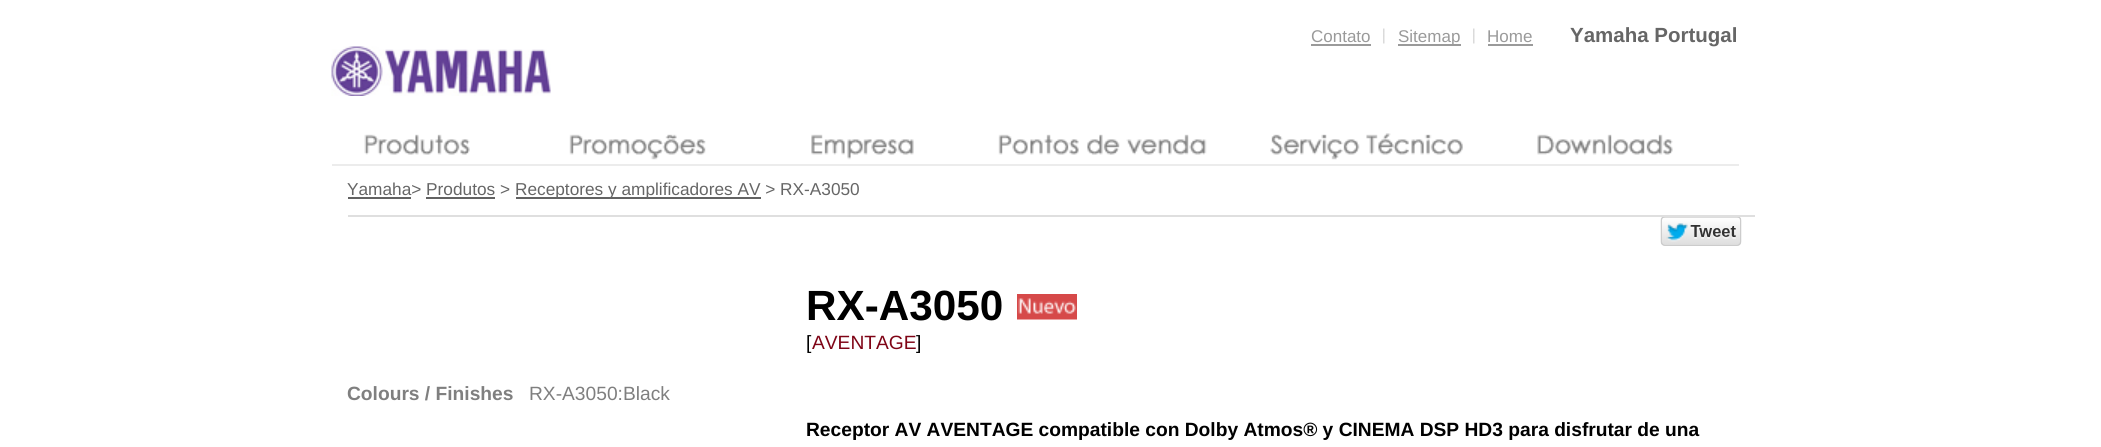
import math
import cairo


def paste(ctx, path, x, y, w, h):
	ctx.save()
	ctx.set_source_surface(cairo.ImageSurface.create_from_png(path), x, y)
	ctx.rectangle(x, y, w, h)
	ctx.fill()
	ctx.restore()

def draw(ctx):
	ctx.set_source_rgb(1, 1, 1)
	ctx.paint()
	ctx.set_source_rgb(0.922, 0.922, 0.922)
	ctx.rectangle(332, 164, 1407, 2)
	ctx.fill()
	paste(ctx, 'media/1.png', 1383, 28, 2, 16)
	ctx.select_font_face('Liberation Sans')
	ctx.set_font_size(17)
	ctx.set_source_rgb(0.604, 0.604, 0.604)
	ctx.move_to(1311, 42)
	ctx.show_text('Contato')
	ctx.rectangle(1311, 44, 60, 2)
	ctx.fill()
	paste(ctx, 'media/1.png', 1473, 28, 2, 16)
	ctx.rectangle(1398, 44, 63, 2)
	ctx.fill()
	ctx.move_to(1398, 42)
	ctx.show_text('Sitemap')
	ctx.move_to(1487, 42)
	ctx.show_text('Home')
	ctx.rectangle(1488, 44, 45, 2)
	ctx.fill()
	ctx.select_font_face('Liberation Sans', cairo.FONT_SLANT_NORMAL, cairo.FONT_WEIGHT_BOLD)
	ctx.set_font_size(20.5)
	ctx.set_source_rgb(0.4, 0.4, 0.4)
	ctx.move_to(1570, 42)
	ctx.show_text('Yamaha Portugal')
	paste(ctx, 'media/2.png', 331, 46, 220, 50)
	paste(ctx, 'media/3.png', 364, 134, 106, 21)
	paste(ctx, 'media/4.png', 569, 134, 137, 26)
	paste(ctx, 'media/5.png', 811, 134, 103, 26)
	paste(ctx, 'media/6.png', 998, 134, 209, 21)
	paste(ctx, 'media/7.png', 1270, 133, 193, 27)
	paste(ctx, 'media/8.png', 1537, 134, 136, 21)
	ctx.set_source_rgb(0.875, 0.875, 0.875)
	ctx.rectangle(348, 215, 1407, 2)
	ctx.fill()
	ctx.select_font_face('Liberation Sans')
	ctx.set_font_size(17.25)
	ctx.set_source_rgb(0.4, 0.4, 0.4)
	ctx.move_to(347, 195)
	ctx.show_text('Yamaha> Produtos >')
	ctx.set_source_rgb(0.384, 0.384, 0.384)
	ctx.rectangle(348, 197, 63, 2)
	ctx.fill()
	ctx.rectangle(516, 197, 245, 2)
	ctx.fill()
	ctx.set_source_rgb(0.4, 0.4, 0.4)
	ctx.move_to(515, 195)
	ctx.show_text('Receptores y amplificadores AV > RX-A3050')
	ctx.set_source_rgb(0.384, 0.384, 0.384)
	ctx.rectangle(426, 197, 69, 2)
	ctx.fill()
	paste(ctx, 'media/9.png', 1660, 217, 82, 29)
	ctx.select_font_face('Liberation Sans', cairo.FONT_SLANT_NORMAL, cairo.FONT_WEIGHT_BOLD)
	ctx.set_font_size(19.2)
	ctx.set_source_rgb(0.498, 0.498, 0.498)
	ctx.move_to(347, 400)
	ctx.show_text('Colours / Finishes')
	ctx.select_font_face('Liberation Sans')
	ctx.move_to(529, 400)
	ctx.show_text('RX-A3050:Black')
	ctx.select_font_face('Liberation Sans', cairo.FONT_SLANT_NORMAL, cairo.FONT_WEIGHT_BOLD)
	ctx.set_font_size(42.25)
	ctx.set_source_rgb(0, 0, 0)
	ctx.move_to(806, 320)
	ctx.show_text('RX-A3050')
	paste(ctx, 'media/10.png', 1017, 294, 60, 26)
	ctx.select_font_face('Liberation Sans')
	ctx.set_font_size(19.2)
	ctx.move_to(806, 349)
	ctx.show_text('[')
	ctx.set_source_rgb(0.498, 0.016, 0.086)
	ctx.move_to(812, 349)
	ctx.show_text('AVENTAGE')
	ctx.set_source_rgb(0, 0, 0)
	ctx.move_to(916, 349)
	ctx.show_text(']')
	ctx.select_font_face('Liberation Sans', cairo.FONT_SLANT_NORMAL, cairo.FONT_WEIGHT_BOLD)
	ctx.move_to(806, 436)
	ctx.show_text('Receptor AV AVENTAGE compatible con Dolby Atmos® y CINEMA DSP HD3 para disfrutar de una')


surface = cairo.ImageSurface(cairo.FORMAT_RGB24, 2101, 447)
ctx = cairo.Context(surface)
options = cairo.FontOptions()
options.set_hint_metrics(cairo.HINT_METRICS_OFF)
options.set_hint_style(cairo.HINT_STYLE_NONE)
ctx.set_font_options(options)
ctx.set_miter_limit(4)
draw(ctx)
surface.write_to_png('image.png')
